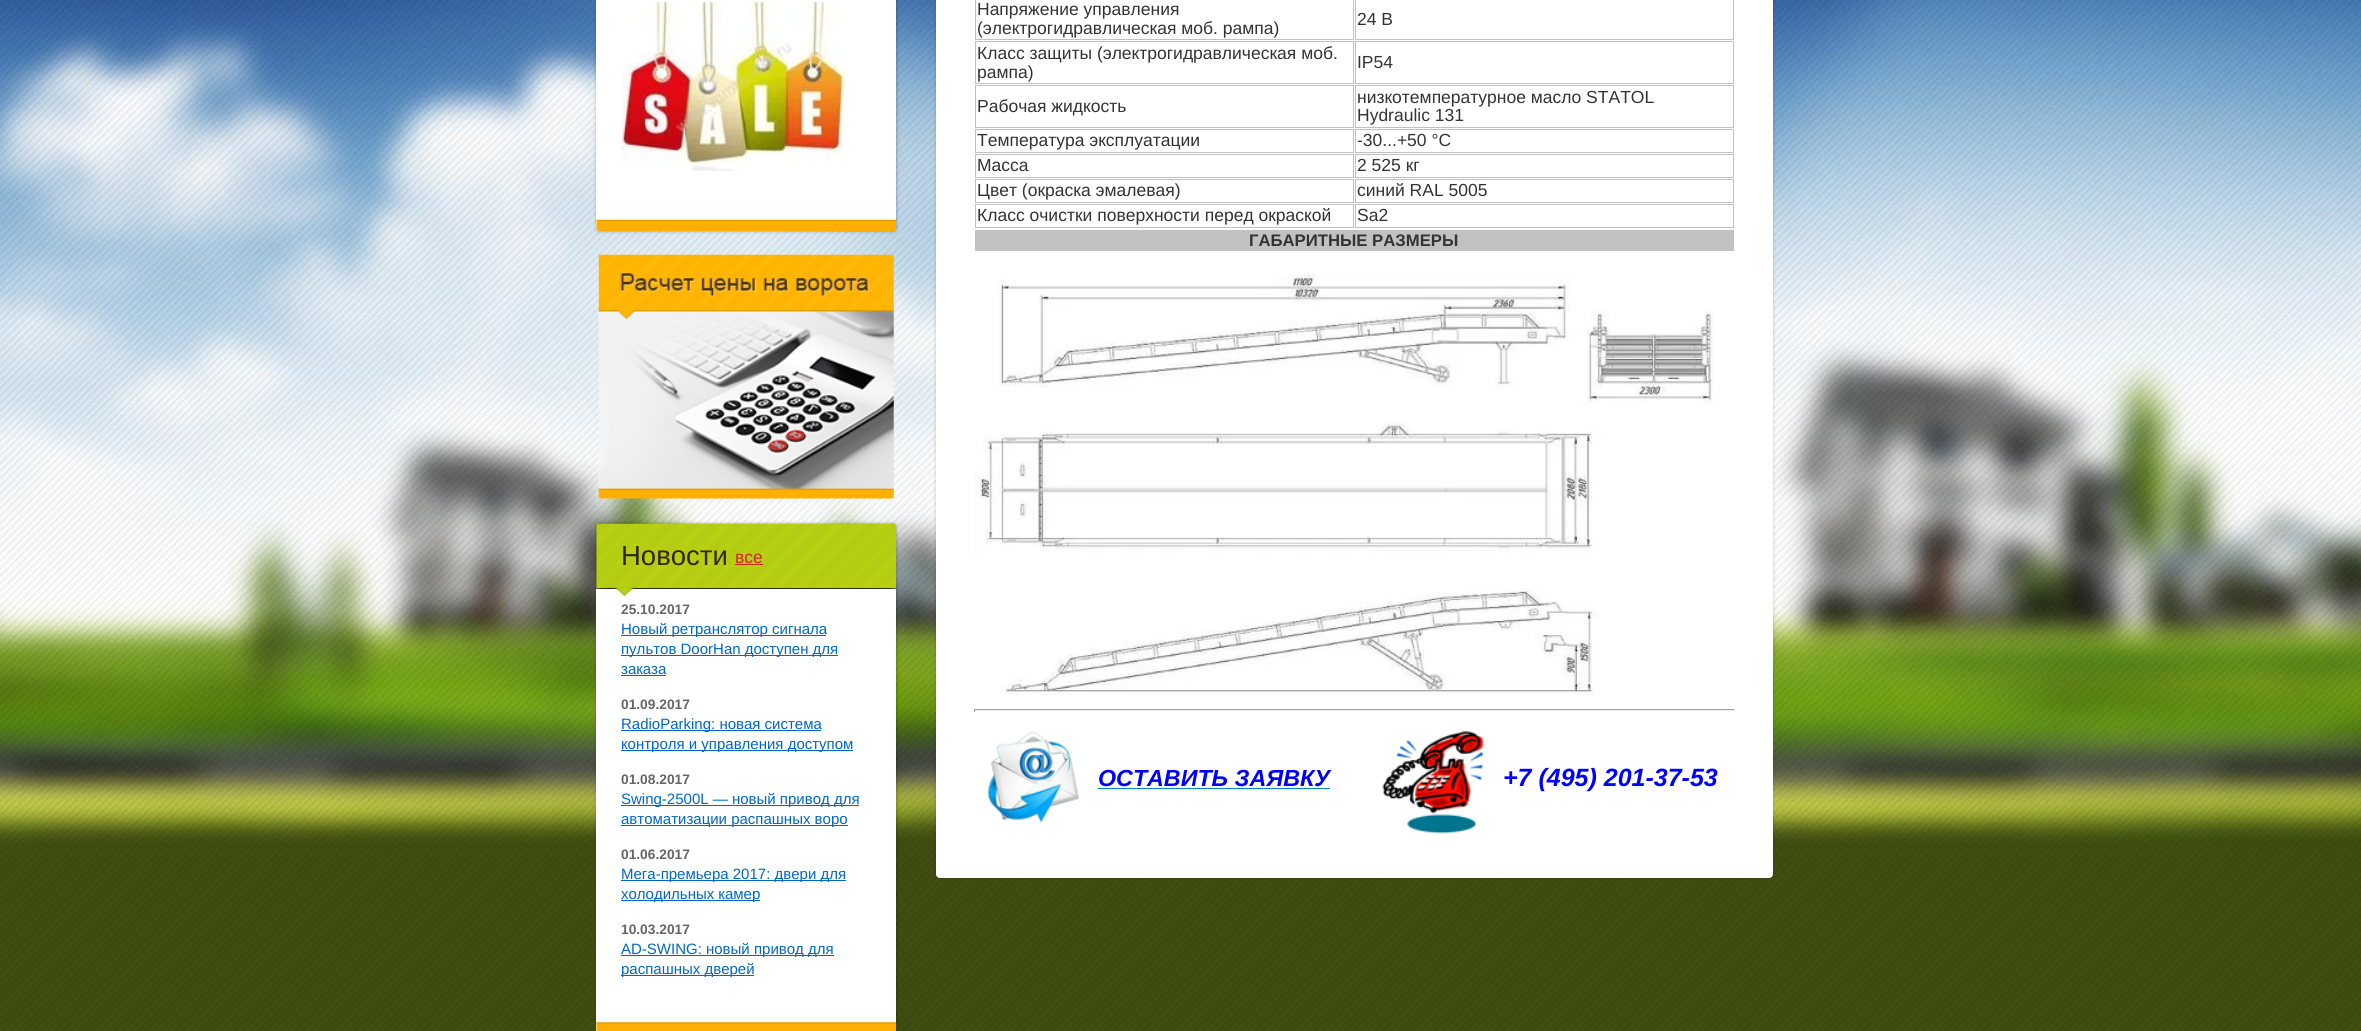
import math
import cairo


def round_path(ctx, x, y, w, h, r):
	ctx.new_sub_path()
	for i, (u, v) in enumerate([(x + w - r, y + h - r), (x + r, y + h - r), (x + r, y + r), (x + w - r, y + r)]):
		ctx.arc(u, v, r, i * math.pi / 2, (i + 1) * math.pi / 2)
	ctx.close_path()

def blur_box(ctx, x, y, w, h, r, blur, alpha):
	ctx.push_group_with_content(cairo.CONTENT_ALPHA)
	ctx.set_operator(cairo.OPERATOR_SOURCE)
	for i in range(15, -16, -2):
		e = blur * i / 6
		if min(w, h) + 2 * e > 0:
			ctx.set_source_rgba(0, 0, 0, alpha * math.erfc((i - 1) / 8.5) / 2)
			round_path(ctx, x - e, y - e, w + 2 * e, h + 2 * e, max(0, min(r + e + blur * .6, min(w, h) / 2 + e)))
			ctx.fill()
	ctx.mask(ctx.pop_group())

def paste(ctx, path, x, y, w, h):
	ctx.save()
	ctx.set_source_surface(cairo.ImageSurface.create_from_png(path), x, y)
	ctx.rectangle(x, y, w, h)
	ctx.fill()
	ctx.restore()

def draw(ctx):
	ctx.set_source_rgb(1, 1, 1)
	ctx.paint()
	paste(ctx, 'media/1.png', 0, 0, 2361, 1031)
	ctx.set_source_rgb(0, 0, 0)
	blur_box(ctx, 599, -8, 295, 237, 0, 2.5, 1)
	ctx.set_source_rgb(1, 1, 1)
	ctx.new_path()
	ctx.move_to(596, -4)
	ctx.line_to(896, -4)
	ctx.line_to(896, 227)
	ctx.curve_to(896, 229, 894, 231, 892, 231)
	ctx.line_to(600, 231)
	ctx.curve_to(598, 231, 596, 229, 596, 227)
	ctx.close_path()
	ctx.fill()
	paste(ctx, 'media/2.png', 596, 219, 301, 12)
	paste(ctx, 'media/3.png', 621, 2, 226, 169)
	paste(ctx, 'media/4.png', 598, 254, 296, 245)
	ctx.set_source_rgb(0, 0, 0)
	blur_box(ctx, 599, 526, 295, 505, 0, 2.5, 1)
	paste(ctx, 'media/5.png', 596, 523, 301, 66)
	ctx.select_font_face('Liberation Sans')
	ctx.set_font_size(27.5)
	ctx.set_source_rgb(0.2, 0.145, 0.024)
	ctx.move_to(621, 565)
	ctx.show_text('Новости')
	ctx.set_font_size(17.5)
	ctx.set_source_rgb(0.827, 0.141, 0.141)
	ctx.move_to(735, 563)
	ctx.show_text('все')
	ctx.rectangle(735, 564, 28, 1)
	ctx.fill()
	ctx.set_source_rgb(1, 1, 1)
	ctx.rectangle(596, 589, 300, 442)
	ctx.fill()
	paste(ctx, 'media/6.png', 615, 587, 19, 9)
	paste(ctx, 'media/7.png', 596, 1022, 301, 9)
	ctx.select_font_face('Liberation Sans', cairo.FONT_SLANT_NORMAL, cairo.FONT_WEIGHT_BOLD)
	ctx.set_font_size(13.75)
	ctx.set_source_rgb(0.4, 0.4, 0.4)
	ctx.move_to(621, 614)
	ctx.show_text('25.10.2017')
	ctx.set_source_rgb(0, 0.404, 0.776)
	ctx.rectangle(621, 635, 205, 1)
	ctx.fill()
	ctx.select_font_face('Liberation Sans')
	ctx.set_font_size(15)
	ctx.move_to(621, 634)
	ctx.show_text('Новый ретранслятор сигнала')
	ctx.rectangle(621, 655, 217, 1)
	ctx.fill()
	ctx.move_to(621, 654)
	ctx.show_text('пультов DoorHan доступен для')
	ctx.move_to(621, 674)
	ctx.show_text('заказа')
	ctx.rectangle(621, 675, 45, 1)
	ctx.fill()
	ctx.select_font_face('Liberation Sans', cairo.FONT_SLANT_NORMAL, cairo.FONT_WEIGHT_BOLD)
	ctx.set_font_size(13.75)
	ctx.set_source_rgb(0.4, 0.4, 0.4)
	ctx.move_to(621, 709)
	ctx.show_text('01.09.2017')
	ctx.set_source_rgb(0, 0.404, 0.776)
	ctx.rectangle(621, 730, 200, 1)
	ctx.fill()
	ctx.select_font_face('Liberation Sans')
	ctx.set_font_size(15)
	ctx.move_to(621, 729)
	ctx.show_text('RadioParking: новая система')
	ctx.rectangle(621, 750, 232, 1)
	ctx.fill()
	ctx.move_to(621, 749)
	ctx.show_text('контроля и управления доступом')
	ctx.select_font_face('Liberation Sans', cairo.FONT_SLANT_NORMAL, cairo.FONT_WEIGHT_BOLD)
	ctx.set_font_size(13.75)
	ctx.set_source_rgb(0.4, 0.4, 0.4)
	ctx.move_to(621, 784)
	ctx.show_text('01.08.2017')
	ctx.set_source_rgb(0, 0.404, 0.776)
	ctx.rectangle(621, 805, 238, 1)
	ctx.fill()
	ctx.select_font_face('Liberation Sans')
	ctx.set_font_size(15)
	ctx.move_to(621, 804)
	ctx.show_text('Swing-2500L — новый привод для')
	ctx.rectangle(621, 825, 227, 1)
	ctx.fill()
	ctx.move_to(621, 824)
	ctx.show_text('автоматизации распашных воро')
	ctx.select_font_face('Liberation Sans', cairo.FONT_SLANT_NORMAL, cairo.FONT_WEIGHT_BOLD)
	ctx.set_font_size(13.75)
	ctx.set_source_rgb(0.4, 0.4, 0.4)
	ctx.move_to(621, 859)
	ctx.show_text('01.06.2017')
	ctx.set_source_rgb(0, 0.404, 0.776)
	ctx.rectangle(621, 880, 225, 1)
	ctx.fill()
	ctx.select_font_face('Liberation Sans')
	ctx.set_font_size(15)
	ctx.move_to(621, 879)
	ctx.show_text('Мега-премьера 2017: двери для')
	ctx.rectangle(621, 900, 139, 1)
	ctx.fill()
	ctx.move_to(621, 899)
	ctx.show_text('холодильных камер')
	ctx.select_font_face('Liberation Sans', cairo.FONT_SLANT_NORMAL, cairo.FONT_WEIGHT_BOLD)
	ctx.set_font_size(13.75)
	ctx.set_source_rgb(0.4, 0.4, 0.4)
	ctx.move_to(621, 934)
	ctx.show_text('10.03.2017')
	ctx.set_source_rgb(0, 0.404, 0.776)
	ctx.rectangle(621, 955, 213, 1)
	ctx.fill()
	ctx.select_font_face('Liberation Sans')
	ctx.set_font_size(15)
	ctx.move_to(621, 954)
	ctx.show_text('AD-SWING: новый привод для')
	ctx.rectangle(621, 975, 133, 1)
	ctx.fill()
	ctx.move_to(621, 974)
	ctx.show_text('распашных дверей')
	ctx.set_source_rgb(0, 0, 0)
	blur_box(ctx, 939, -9, 831, 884, 1, 2.5, 1)
	ctx.set_source_rgb(1, 1, 1)
	round_path(ctx, 936, -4, 837, 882, 4)
	ctx.fill()
	ctx.rectangle(975.5, -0.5, 378, 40)
	ctx.set_source_rgb(0.757, 0.757, 0.757)
	ctx.set_line_width(1)
	ctx.stroke()
	ctx.set_font_size(17.5)
	ctx.set_source_rgb(0.2, 0.2, 0.2)
	ctx.move_to(977, 15)
	ctx.show_text('Напряжение управления')
	ctx.move_to(977, 34)
	ctx.show_text('(электрогидравлическая моб. рампа)')
	ctx.rectangle(1355.5, -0.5, 378, 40)
	ctx.set_source_rgb(0.757, 0.757, 0.757)
	ctx.stroke()
	ctx.set_source_rgb(0.2, 0.2, 0.2)
	ctx.move_to(1357, 25)
	ctx.show_text('24 В')
	ctx.rectangle(975.5, 41.5, 378, 42)
	ctx.set_source_rgb(0.757, 0.757, 0.757)
	ctx.stroke()
	ctx.set_source_rgb(0.2, 0.2, 0.2)
	ctx.move_to(977, 59)
	ctx.show_text('Класс защиты (электрогидравлическая моб.')
	ctx.move_to(977, 78)
	ctx.show_text('рампа)')
	ctx.rectangle(1355.5, 41.5, 378, 42)
	ctx.set_source_rgb(0.757, 0.757, 0.757)
	ctx.stroke()
	ctx.set_source_rgb(0.2, 0.2, 0.2)
	ctx.move_to(1357, 68)
	ctx.show_text('IP54')
	ctx.rectangle(975.5, 85.5, 378, 42)
	ctx.set_source_rgb(0.757, 0.757, 0.757)
	ctx.stroke()
	ctx.set_source_rgb(0.2, 0.2, 0.2)
	ctx.move_to(977, 112)
	ctx.show_text('Рабочая жидкость')
	ctx.rectangle(1355.5, 85.5, 378, 42)
	ctx.set_source_rgb(0.757, 0.757, 0.757)
	ctx.stroke()
	ctx.set_source_rgb(0.2, 0.2, 0.2)
	ctx.move_to(1357, 103)
	ctx.show_text('низкотемпературное масло STATOL')
	ctx.move_to(1357, 121)
	ctx.show_text('Hydraulic 131')
	ctx.rectangle(975.5, 129.5, 378, 23)
	ctx.set_source_rgb(0.757, 0.757, 0.757)
	ctx.stroke()
	ctx.set_source_rgb(0.2, 0.2, 0.2)
	ctx.move_to(977, 146)
	ctx.show_text('Температура эксплуатации')
	ctx.rectangle(1355.5, 129.5, 378, 23)
	ctx.set_source_rgb(0.757, 0.757, 0.757)
	ctx.stroke()
	ctx.set_source_rgb(0.2, 0.2, 0.2)
	ctx.move_to(1357, 146)
	ctx.show_text('-30...+50 °С')
	ctx.rectangle(975.5, 154.5, 378, 23)
	ctx.set_source_rgb(0.757, 0.757, 0.757)
	ctx.stroke()
	ctx.set_source_rgb(0.2, 0.2, 0.2)
	ctx.move_to(977, 171)
	ctx.show_text('Масса')
	ctx.rectangle(1355.5, 154.5, 378, 23)
	ctx.set_source_rgb(0.757, 0.757, 0.757)
	ctx.stroke()
	ctx.set_source_rgb(0.2, 0.2, 0.2)
	ctx.move_to(1357, 171)
	ctx.show_text('2 525 кг')
	ctx.rectangle(975.5, 179.5, 378, 23)
	ctx.set_source_rgb(0.757, 0.757, 0.757)
	ctx.stroke()
	ctx.set_source_rgb(0.2, 0.2, 0.2)
	ctx.move_to(977, 196)
	ctx.show_text('Цвет (окраска эмалевая)')
	ctx.rectangle(1355.5, 179.5, 378, 23)
	ctx.set_source_rgb(0.757, 0.757, 0.757)
	ctx.stroke()
	ctx.set_source_rgb(0.2, 0.2, 0.2)
	ctx.move_to(1357, 196)
	ctx.show_text('синий RAL 5005')
	ctx.rectangle(975.5, 204.5, 378, 23)
	ctx.set_source_rgb(0.757, 0.757, 0.757)
	ctx.stroke()
	ctx.set_source_rgb(0.2, 0.2, 0.2)
	ctx.move_to(977, 221)
	ctx.show_text('Класс очистки поверхности перед окраской')
	ctx.rectangle(1355.5, 204.5, 378, 23)
	ctx.set_source_rgb(0.757, 0.757, 0.757)
	ctx.stroke()
	ctx.set_source_rgb(0.2, 0.2, 0.2)
	ctx.move_to(1357, 221)
	ctx.show_text('Sa2')
	ctx.set_source_rgb(0.757, 0.757, 0.757)
	ctx.rectangle(975, 230, 759, 21)
	ctx.fill()
	ctx.select_font_face('Liberation Sans', cairo.FONT_SLANT_NORMAL, cairo.FONT_WEIGHT_BOLD)
	ctx.set_font_size(16.7)
	ctx.set_source_rgb(0.2, 0.2, 0.2)
	ctx.move_to(1249, 246)
	ctx.show_text('ГАБАРИТНЫЕ РАЗМЕРЫ')
	paste(ctx, 'media/8.png', 974, 274, 740, 421)
	ctx.set_source_rgb(0.624, 0.624, 0.624)
	ctx.rectangle(974, 709, 761, 1)
	ctx.fill()
	ctx.set_source_rgb(0.933, 0.933, 0.933)
	ctx.rectangle(1734, 709, 1, 3)
	ctx.rectangle(974, 710, 761, 1)
	ctx.fill()
	ctx.set_source_rgb(0.624, 0.624, 0.624)
	ctx.rectangle(974, 709, 1, 3)
	ctx.fill()
	paste(ctx, 'media/9.png', 987, 731, 92, 92)
	ctx.select_font_face('Liberation Sans', cairo.FONT_SLANT_ITALIC, cairo.FONT_WEIGHT_BOLD)
	ctx.set_font_size(23.25)
	ctx.set_source_rgb(0, 0, 1)
	ctx.move_to(1098, 786)
	ctx.show_text('ОСТАВИТЬ ЗАЯВКУ')
	ctx.set_source_rgb(0, 0.533, 0.8)
	ctx.rectangle(1098, 788, 232, 1)
	ctx.fill()
	paste(ctx, 'media/10.png', 1382, 731, 102, 103)
	ctx.set_font_size(25)
	ctx.set_source_rgb(0, 0, 1)
	ctx.move_to(1503, 786)
	ctx.show_text('+7 (495) 201-37-53')


surface = cairo.ImageSurface(cairo.FORMAT_RGB24, 2361, 1031)
ctx = cairo.Context(surface)
options = cairo.FontOptions()
options.set_hint_metrics(cairo.HINT_METRICS_OFF)
options.set_hint_style(cairo.HINT_STYLE_NONE)
ctx.set_font_options(options)
ctx.set_miter_limit(4)
draw(ctx)
surface.write_to_png('image.png')
